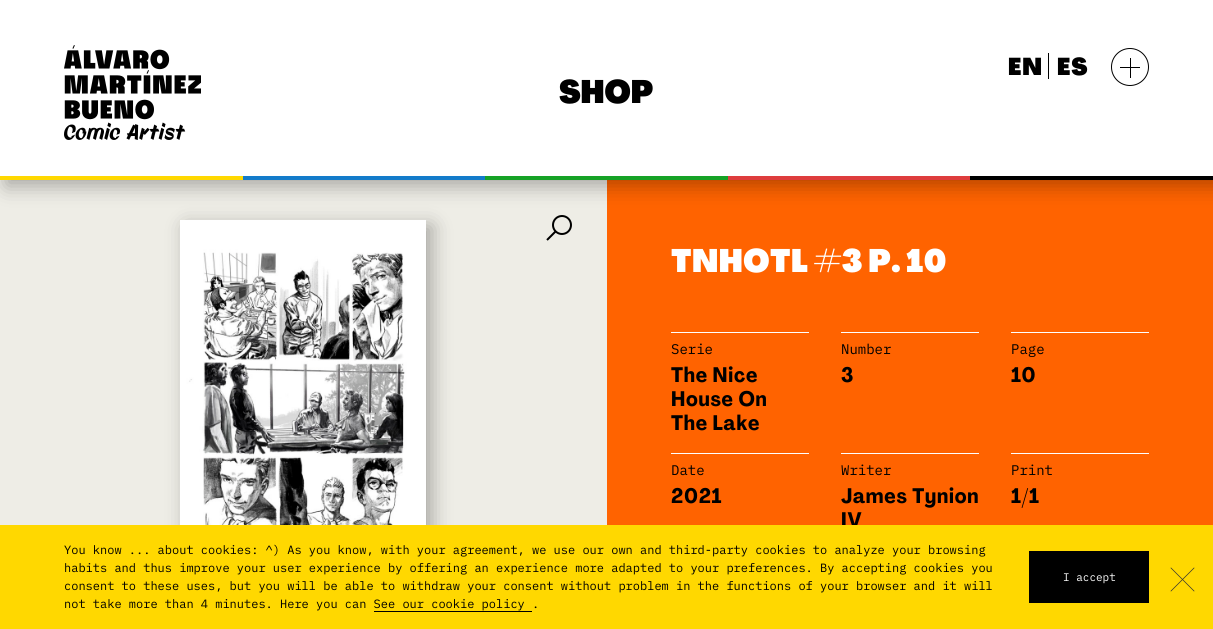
import math
import cairo


def write_spaced(ctx, x, y, s, letter, word):
	ctx.move_to(x, y)
	for ch in s:
		ctx.show_text(ch)
		ctx.rel_move_to(letter + word * (ch == ' '), 0)

def round_path(ctx, x, y, w, h, r):
	ctx.new_sub_path()
	for i, (u, v) in enumerate([(x + w - r, y + h - r), (x + r, y + h - r), (x + r, y + r), (x + w - r, y + r)]):
		ctx.arc(u, v, r, i * math.pi / 2, (i + 1) * math.pi / 2)
	ctx.close_path()

def blur_box(ctx, x, y, w, h, r, blur, alpha):
	ctx.push_group_with_content(cairo.CONTENT_ALPHA)
	ctx.set_operator(cairo.OPERATOR_SOURCE)
	for i in range(15, -16, -2):
		e = blur * i / 6
		if min(w, h) + 2 * e > 0:
			ctx.set_source_rgba(0, 0, 0, alpha * math.erfc((i - 1) / 8.5) / 2)
			round_path(ctx, x - e, y - e, w + 2 * e, h + 2 * e, max(0, min(r + e + blur * .6, min(w, h) / 2 + e)))
			ctx.fill()
	ctx.mask(ctx.pop_group())

def paste(ctx, path, x, y, w, h):
	ctx.save()
	ctx.set_source_surface(cairo.ImageSurface.create_from_png(path), x, y)
	ctx.rectangle(x, y, w, h)
	ctx.fill()
	ctx.restore()

def draw(ctx):
	ctx.set_source_rgb(0.933, 0.929, 0.902)
	ctx.paint()
	paste(ctx, 'media/3.png', 546, 215, 26, 26)
	ctx.set_source_rgb(1, 0.388, 0)
	ctx.rectangle(607, 180, 606, 345)
	ctx.fill()
	ctx.set_source_rgb(0, 0, 0)
	blur_box(ctx, 6, 6, 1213, 180, 0, 10, 0.3)
	ctx.set_source_rgb(1, 1, 1)
	ctx.rectangle(0, 0, 1213, 176)
	ctx.fill()
	paste(ctx, 'media/1.png', 64, 45, 137, 95)
	ctx.save()
	ctx.rectangle(1008, 57, 33, 24)
	ctx.clip()
	ctx.select_font_face('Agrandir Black')
	ctx.set_font_size(24)
	ctx.set_source_rgb(0, 0, 0)
	write_spaced(ctx, 1008, 75, 'EN', 1, 0)
	ctx.restore()
	ctx.set_source_rgb(0, 0, 0)
	ctx.rectangle(1048, 53, 1, 26)
	ctx.fill()
	ctx.select_font_face('Agrandir Black')
	ctx.set_font_size(24)
	write_spaced(ctx, 1057, 75, 'ES', 1, 0)
	ctx.new_path()
	ctx.arc(1130, 67, 18.5, 0, 2 * math.pi)
	ctx.set_line_width(1)
	ctx.stroke()
	ctx.rectangle(1120, 67, 20, 1)
	ctx.fill()
	ctx.rectangle(1130, 58, 1, 20)
	ctx.fill()
	ctx.set_font_size(32)
	ctx.move_to(559, 103)
	ctx.show_text('SHOP')
	ctx.set_source_rgb(1, 0.847, 0)
	ctx.rectangle(0, 176, 243, 4)
	ctx.fill()
	ctx.set_source_rgb(0.078, 0.482, 0.792)
	ctx.rectangle(243, 176, 242, 4)
	ctx.fill()
	ctx.set_source_rgb(0.086, 0.635, 0.149)
	ctx.rectangle(485, 176, 243, 4)
	ctx.fill()
	ctx.set_source_rgb(0.871, 0.239, 0.239)
	ctx.rectangle(728, 176, 242, 4)
	ctx.fill()
	ctx.set_source_rgb(0, 0, 0)
	ctx.rectangle(970, 176, 243, 4)
	ctx.fill()
	ctx.set_source_rgb(0, 0, 0)
	blur_box(ctx, 186, 226, 246, 369, 0, 10, 0.3)
	paste(ctx, 'media/2.png', 180, 220, 246, 305)
	ctx.set_source_rgb(1, 1, 1)
	write_spaced(ctx, 671, 272, 'TNHOTL #3 P. 10', 0.5, 0)
	ctx.rectangle(671, 332, 138, 1)
	ctx.fill()
	ctx.select_font_face('IBM Plex Mono')
	ctx.set_font_size(14)
	ctx.set_source_rgb(0, 0, 0)
	ctx.move_to(671, 354)
	ctx.show_text('Serie')
	ctx.select_font_face('Agrandir', cairo.FONT_SLANT_NORMAL, cairo.FONT_WEIGHT_BOLD)
	ctx.set_font_size(20.75)
	for x, y, s in [
		(671, 382, 'The Nice'),
		(671, 406, 'House On'),
		(671, 430, 'The Lake'),
	]:
		write_spaced(ctx, x, y, s, 0.75, 0)
	ctx.set_source_rgb(1, 1, 1)
	ctx.rectangle(841, 332, 138, 1)
	ctx.fill()
	ctx.select_font_face('IBM Plex Mono')
	ctx.set_font_size(14)
	ctx.set_source_rgb(0, 0, 0)
	ctx.move_to(841, 354)
	ctx.show_text('Number')
	ctx.select_font_face('Agrandir', cairo.FONT_SLANT_NORMAL, cairo.FONT_WEIGHT_BOLD)
	ctx.set_font_size(20.75)
	write_spaced(ctx, 841, 382, '3', 0.75, 0)
	ctx.set_source_rgb(1, 1, 1)
	ctx.rectangle(1011, 332, 138, 1)
	ctx.fill()
	ctx.select_font_face('IBM Plex Mono')
	ctx.set_font_size(14)
	ctx.set_source_rgb(0, 0, 0)
	ctx.move_to(1011, 354)
	ctx.show_text('Page')
	ctx.select_font_face('Agrandir', cairo.FONT_SLANT_NORMAL, cairo.FONT_WEIGHT_BOLD)
	ctx.set_font_size(20.75)
	write_spaced(ctx, 1011, 382, '10', 0.75, 0)
	ctx.set_source_rgb(1, 1, 1)
	ctx.rectangle(671, 453, 138, 1)
	ctx.fill()
	ctx.select_font_face('IBM Plex Mono')
	ctx.set_font_size(14)
	ctx.set_source_rgb(0, 0, 0)
	ctx.move_to(671, 475)
	ctx.show_text('Date')
	ctx.select_font_face('Agrandir', cairo.FONT_SLANT_NORMAL, cairo.FONT_WEIGHT_BOLD)
	ctx.set_font_size(20.75)
	write_spaced(ctx, 671, 503, '2021', 0.75, 0)
	ctx.set_source_rgb(1, 1, 1)
	ctx.rectangle(841, 453, 138, 1)
	ctx.fill()
	ctx.select_font_face('IBM Plex Mono')
	ctx.set_font_size(14)
	ctx.set_source_rgb(0, 0, 0)
	ctx.move_to(841, 475)
	ctx.show_text('Writer')
	ctx.select_font_face('Agrandir', cairo.FONT_SLANT_NORMAL, cairo.FONT_WEIGHT_BOLD)
	ctx.set_font_size(20.75)
	write_spaced(ctx, 841, 503, 'James Tynion', 0.75, 0)
	write_spaced(ctx, 841, 527, 'IV', 0.75, 0)
	ctx.set_source_rgb(1, 1, 1)
	ctx.rectangle(1011, 453, 138, 1)
	ctx.fill()
	ctx.select_font_face('IBM Plex Mono')
	ctx.set_font_size(14)
	ctx.set_source_rgb(0, 0, 0)
	ctx.move_to(1011, 475)
	ctx.show_text('Print')
	ctx.select_font_face('Agrandir', cairo.FONT_SLANT_NORMAL, cairo.FONT_WEIGHT_BOLD)
	ctx.set_font_size(20.75)
	write_spaced(ctx, 1011, 503, '1/1', 0.75, 0)
	ctx.set_source_rgb(1, 0.847, 0)
	ctx.rectangle(0, 525, 1213, 104)
	ctx.fill()
	ctx.select_font_face('IBM Plex Mono')
	ctx.set_font_size(12)
	ctx.set_source_rgb(0, 0, 0)
	for x, y, s in [
		(64, 554, 'You know ... about cookies: ^) As you know, with your agreement, we use our own and third-party cookies to analyze your browsing'),
		(64, 572, 'habits and thus improve your user experience by offering an experience more adapted to your preferences. By accepting cookies you'),
		(64, 590, 'consent to these uses, but you will be able to withdraw your consent without problem in the functions of your browser and it will'),
		(64, 608, 'not take more than 4 minutes. Here you can See our cookie policy .'),
	]:
		ctx.move_to(x, y)
		ctx.show_text(s)
	ctx.rectangle(374, 611, 158, 1)
	ctx.fill()
	ctx.rectangle(1029, 551, 120, 52)
	ctx.fill()
	ctx.set_font_size(11)
	ctx.set_source_rgb(1, 1, 1)
	ctx.move_to(1063, 581)
	ctx.show_text('I accept')
	ctx.set_source_rgb(0.2, 0.2, 0.2)
	ctx.new_path()
	ctx.move_to(1194, 567.5)
	ctx.line_to(1194.5, 568)
	ctx.line_to(1171, 591.5)
	ctx.line_to(1170.5, 591)
	ctx.close_path()
	ctx.fill()
	ctx.new_path()
	ctx.move_to(1170.5, 568)
	ctx.line_to(1171, 567.5)
	ctx.line_to(1194.5, 591)
	ctx.line_to(1194, 591.5)
	ctx.close_path()
	ctx.fill()


surface = cairo.ImageSurface(cairo.FORMAT_RGB24, 1213, 629)
ctx = cairo.Context(surface)
options = cairo.FontOptions()
options.set_hint_metrics(cairo.HINT_METRICS_OFF)
options.set_hint_style(cairo.HINT_STYLE_NONE)
ctx.set_font_options(options)
ctx.set_miter_limit(4)
draw(ctx)
surface.write_to_png('image.png')
